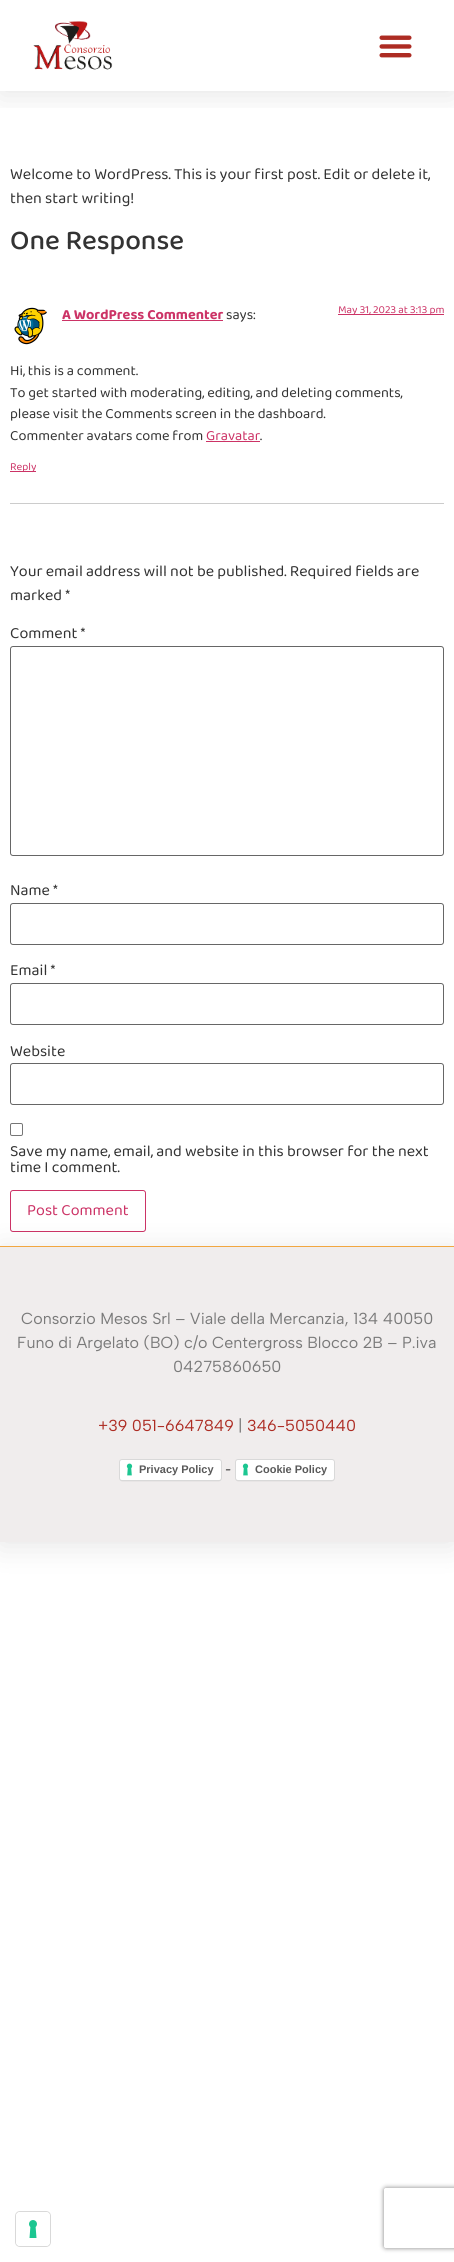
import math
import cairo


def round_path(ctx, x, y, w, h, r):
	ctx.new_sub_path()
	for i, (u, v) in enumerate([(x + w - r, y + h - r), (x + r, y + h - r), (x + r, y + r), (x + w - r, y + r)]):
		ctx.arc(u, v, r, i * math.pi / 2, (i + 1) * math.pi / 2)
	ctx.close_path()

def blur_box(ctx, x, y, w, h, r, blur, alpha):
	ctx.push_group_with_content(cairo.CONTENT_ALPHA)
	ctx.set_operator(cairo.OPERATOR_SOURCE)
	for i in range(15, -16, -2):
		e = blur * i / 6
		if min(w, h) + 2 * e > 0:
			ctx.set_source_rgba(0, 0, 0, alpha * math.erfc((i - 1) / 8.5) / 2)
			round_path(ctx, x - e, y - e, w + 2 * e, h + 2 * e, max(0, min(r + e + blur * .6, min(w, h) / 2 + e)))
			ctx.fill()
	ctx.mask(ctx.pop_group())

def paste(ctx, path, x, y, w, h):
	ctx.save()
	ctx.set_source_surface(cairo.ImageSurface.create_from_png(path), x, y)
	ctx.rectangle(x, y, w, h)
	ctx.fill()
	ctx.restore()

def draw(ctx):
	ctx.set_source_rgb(1, 1, 1)
	ctx.paint()
	ctx.save()
	ctx.rectangle(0, 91, 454, 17)
	ctx.clip()
	ctx.set_source_rgb(0, 0, 0)
	blur_box(ctx, 0, 4, 454, 91, 0, 15, 0.1)
	ctx.restore()
	paste(ctx, 'media/1.png', 33, 21, 80, 49)
	paste(ctx, 'media/2.png', 379, 35, 33, 23)
	ctx.select_font_face('Baloo 2')
	ctx.set_font_size(16)
	ctx.set_source_rgb(0.2, 0.2, 0.2)
	ctx.move_to(10, 179)
	ctx.show_text('Welcome to WordPress. This is your first post. Edit or delete it,')
	ctx.move_to(10, 203)
	ctx.show_text('then start writing!')
	ctx.select_font_face('Baloo 2 Medium')
	ctx.set_font_size(28)
	ctx.move_to(10, 249)
	ctx.show_text('One Response')
	ctx.set_source_rgb(0.8, 0.8, 0.8)
	ctx.rectangle(10, 503, 434, 1)
	ctx.fill()
	paste(ctx, 'media/3.png', 14, 307, 33, 38)
	ctx.select_font_face('Baloo 2', cairo.FONT_SLANT_NORMAL, cairo.FONT_WEIGHT_BOLD)
	ctx.set_font_size(14.4)
	ctx.set_source_rgb(0.8, 0.2, 0.4)
	ctx.move_to(62, 319)
	ctx.show_text('A WordPress Commenter')
	ctx.rectangle(62, 320, 161, 1)
	ctx.fill()
	ctx.select_font_face('Baloo 2')
	ctx.set_source_rgb(0.2, 0.2, 0.2)
	ctx.move_to(226, 319)
	ctx.show_text('says:')
	ctx.set_source_rgb(0.8, 0.2, 0.4)
	ctx.rectangle(338, 314, 106, 1)
	ctx.fill()
	ctx.set_font_size(11)
	ctx.move_to(338, 313)
	ctx.show_text('May 31, 2023 at 3:13 pm')
	ctx.set_font_size(14.4)
	ctx.set_source_rgb(0.2, 0.2, 0.2)
	for x, y, s in [
		(10, 375, 'Hi, this is a comment.'),
		(10, 397, 'To get started with moderating, editing, and deleting comments,'),
		(10, 418, 'please visit the Comments screen in the dashboard.'),
		(10, 440, 'Commenter avatars come from'),
	]:
		ctx.move_to(x, y)
		ctx.show_text(s)
	ctx.set_source_rgb(0.8, 0.2, 0.4)
	ctx.move_to(206, 440)
	ctx.show_text('Gravatar')
	ctx.rectangle(206, 441, 54, 1)
	ctx.fill()
	ctx.set_source_rgb(0.2, 0.2, 0.2)
	ctx.move_to(260, 440)
	ctx.show_text('.')
	ctx.set_source_rgb(0.8, 0.2, 0.4)
	ctx.rectangle(10, 471, 26, 1)
	ctx.fill()
	ctx.set_font_size(11)
	ctx.move_to(10, 470)
	ctx.show_text('Reply')
	ctx.set_font_size(16)
	ctx.set_source_rgb(0.2, 0.2, 0.2)
	for x, y, s in [
		(10, 576, 'Your email address will not be published. Required fields are'),
		(10, 600, 'marked *'),
		(10, 638, 'Comment *'),
	]:
		ctx.move_to(x, y)
		ctx.show_text(s)
	round_path(ctx, 10.5, 646.5, 433, 209, 2.5)
	ctx.set_source_rgb(0.4, 0.4, 0.4)
	ctx.set_line_width(1)
	ctx.stroke()
	ctx.set_source_rgb(0.2, 0.2, 0.2)
	ctx.move_to(10, 895)
	ctx.show_text('Name *')
	round_path(ctx, 10.5, 903.5, 433, 41, 2.5)
	ctx.set_source_rgb(0.4, 0.4, 0.4)
	ctx.stroke()
	ctx.set_source_rgb(0.2, 0.2, 0.2)
	ctx.move_to(10, 975)
	ctx.show_text('Email *')
	round_path(ctx, 10.5, 983.5, 433, 41, 2.5)
	ctx.set_source_rgb(0.4, 0.4, 0.4)
	ctx.stroke()
	ctx.set_source_rgb(0.2, 0.2, 0.2)
	ctx.move_to(10, 1056)
	ctx.show_text('Website')
	round_path(ctx, 10.5, 1063.5, 433, 41, 2.5)
	ctx.set_source_rgb(0.4, 0.4, 0.4)
	ctx.stroke()
	round_path(ctx, 10.5, 1123.5, 12, 12, 1.5)
	ctx.set_source_rgb(0.463, 0.463, 0.463)
	ctx.stroke()
	ctx.set_source_rgb(0.2, 0.2, 0.2)
	ctx.move_to(10, 1156)
	ctx.show_text('Save my name, email, and website in this browser for the next')
	ctx.move_to(10, 1172)
	ctx.show_text('time I comment.')
	round_path(ctx, 10.5, 1190.5, 135, 41, 2.5)
	ctx.set_source_rgb(0.8, 0.2, 0.4)
	ctx.stroke()
	ctx.move_to(27, 1215)
	ctx.show_text('Post Comment')
	ctx.set_source_rgb(0, 0, 0)
	blur_box(ctx, 0, 1250, 454, 296, 0, 15, 0.1)
	ctx.set_source_rgb(0.941, 0.929, 0.929)
	ctx.rectangle(0, 1247, 454, 295)
	ctx.fill()
	ctx.set_source_rgb(0.949, 0.655, 0.255)
	ctx.rectangle(0, 1246, 454, 1)
	ctx.fill()
	ctx.select_font_face('Albert Sans')
	ctx.set_source_rgb(0.478, 0.478, 0.478)
	for x, y, s in [
		(21, 1324, 'Consorzio Mesos Srl – Viale della Mercanzia, 134 40050'),
		(17, 1348, 'Funo di Argelato (BO) c/o Centergross Blocco 2B – P.iva'),
		(173, 1372, '04275860650'),
	]:
		ctx.move_to(x, y)
		ctx.show_text(s)
	ctx.set_source_rgb(0.678, 0.173, 0.137)
	ctx.move_to(98, 1431)
	ctx.show_text('+39 051-6647849')
	ctx.set_source_rgb(0.478, 0.478, 0.478)
	ctx.move_to(238, 1431)
	ctx.show_text('|')
	ctx.set_source_rgb(0.678, 0.173, 0.137)
	ctx.move_to(247, 1431)
	ctx.show_text('346-5050440')
	ctx.set_source_rgb(0, 0, 0)
	blur_box(ctx, 120, 1461, 101, 20, 2, 0.5, 0.15)
	ctx.set_source_rgb(1, 1, 1)
	round_path(ctx, 119, 1459, 103, 22, 3)
	ctx.fill()
	paste(ctx, 'media/4.png', 126, 1463, 7, 13)
	round_path(ctx, 119.5, 1459.5, 102, 21, 2.5)
	ctx.set_source_rgba(0, 0, 0, 0.15)
	ctx.stroke()
	ctx.select_font_face('Liberation Sans', cairo.FONT_SLANT_NORMAL, cairo.FONT_WEIGHT_BOLD)
	ctx.set_font_size(11)
	ctx.set_source_rgb(0.349, 0.349, 0.349)
	ctx.move_to(139, 1473)
	ctx.show_text('Privacy Policy')
	ctx.select_font_face('Baloo 2')
	ctx.set_font_size(16)
	ctx.set_source_rgb(0.2, 0.2, 0.2)
	ctx.move_to(225, 1474)
	ctx.show_text('-')
	ctx.set_source_rgb(0, 0, 0)
	blur_box(ctx, 236, 1461, 98, 20, 2, 0.5, 0.15)
	ctx.set_source_rgb(1, 1, 1)
	round_path(ctx, 235, 1459, 100, 22, 3)
	ctx.fill()
	paste(ctx, 'media/4.png', 242, 1463, 7, 13)
	round_path(ctx, 235.5, 1459.5, 99, 21, 2.5)
	ctx.set_source_rgba(0, 0, 0, 0.15)
	ctx.stroke()
	ctx.select_font_face('Liberation Sans', cairo.FONT_SLANT_NORMAL, cairo.FONT_WEIGHT_BOLD)
	ctx.set_font_size(11)
	ctx.set_source_rgb(0.349, 0.349, 0.349)
	ctx.move_to(255, 1473)
	ctx.show_text('Cookie Policy')
	round_path(ctx, 15.5, 2211.5, 35, 35, 4.5)
	ctx.set_source_rgb(0.851, 0.851, 0.851)
	ctx.stroke()
	ctx.set_source_rgb(1, 1, 1)
	round_path(ctx, 16, 2212, 34, 34, 4)
	ctx.fill()
	paste(ctx, 'media/5.png', 29, 2220, 8, 18)
	ctx.save()
	ctx.set_fill_rule(cairo.FILL_RULE_EVEN_ODD)
	ctx.new_path()
	ctx.move_to(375, 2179)
	ctx.line_to(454, 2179)
	ctx.line_to(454, 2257)
	ctx.line_to(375, 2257)
	ctx.close_path()
	ctx.move_to(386, 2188)
	ctx.line_to(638, 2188)
	ctx.curve_to(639, 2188, 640, 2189, 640, 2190)
	ctx.line_to(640, 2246)
	ctx.curve_to(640, 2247, 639, 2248, 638, 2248)
	ctx.line_to(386, 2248)
	ctx.curve_to(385, 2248, 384, 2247, 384, 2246)
	ctx.line_to(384, 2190)
	ctx.curve_to(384, 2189, 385, 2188, 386, 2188)
	ctx.close_path()
	ctx.clip()
	ctx.set_source_rgb(0.502, 0.502, 0.502)
	blur_box(ctx, 384, 2188, 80, 60, 2, 2.5, 1)
	ctx.restore()


surface = cairo.ImageSurface(cairo.FORMAT_RGB24, 454, 2262)
ctx = cairo.Context(surface)
options = cairo.FontOptions()
options.set_hint_metrics(cairo.HINT_METRICS_OFF)
options.set_hint_style(cairo.HINT_STYLE_NONE)
ctx.set_font_options(options)
ctx.set_miter_limit(4)
draw(ctx)
surface.write_to_png('image.png')
